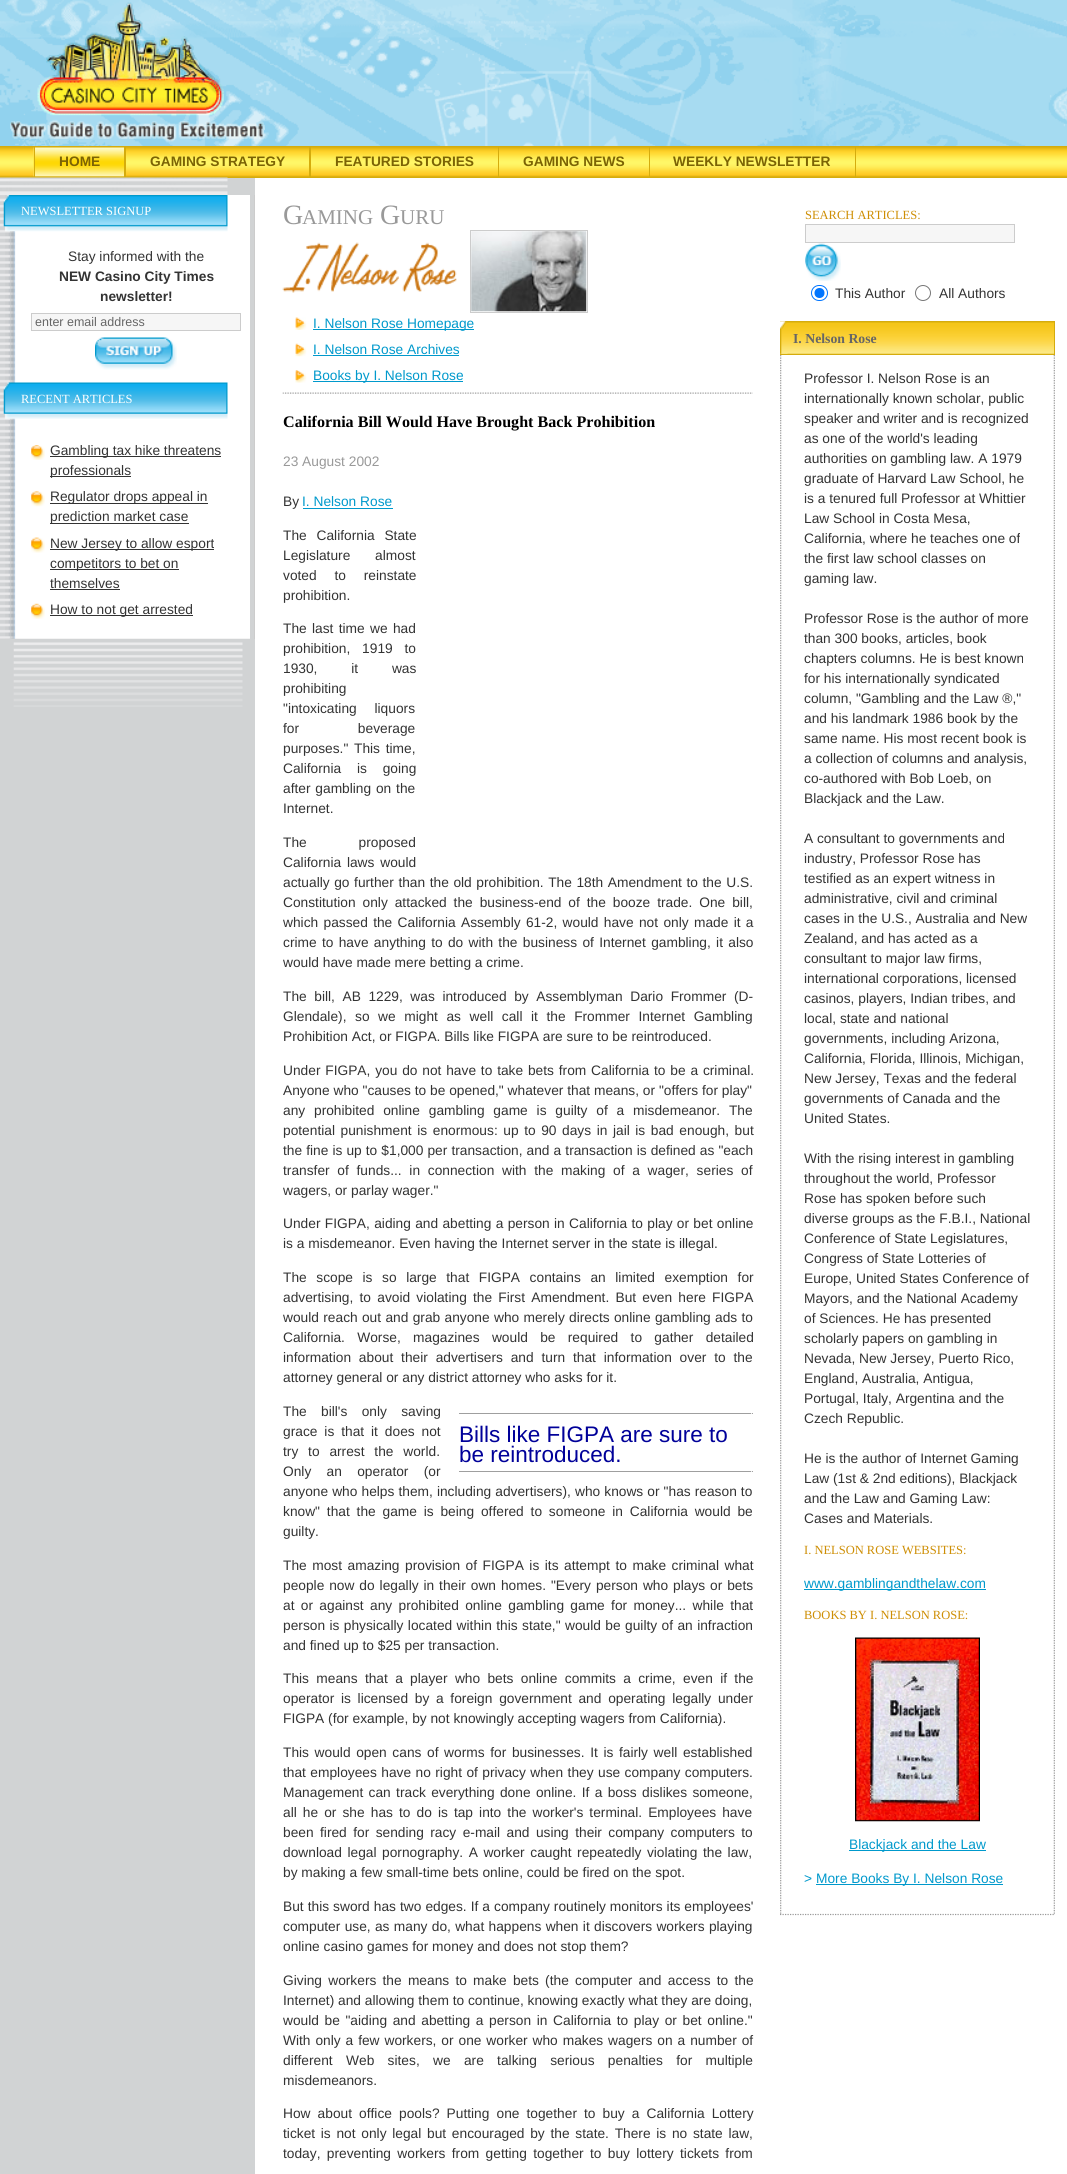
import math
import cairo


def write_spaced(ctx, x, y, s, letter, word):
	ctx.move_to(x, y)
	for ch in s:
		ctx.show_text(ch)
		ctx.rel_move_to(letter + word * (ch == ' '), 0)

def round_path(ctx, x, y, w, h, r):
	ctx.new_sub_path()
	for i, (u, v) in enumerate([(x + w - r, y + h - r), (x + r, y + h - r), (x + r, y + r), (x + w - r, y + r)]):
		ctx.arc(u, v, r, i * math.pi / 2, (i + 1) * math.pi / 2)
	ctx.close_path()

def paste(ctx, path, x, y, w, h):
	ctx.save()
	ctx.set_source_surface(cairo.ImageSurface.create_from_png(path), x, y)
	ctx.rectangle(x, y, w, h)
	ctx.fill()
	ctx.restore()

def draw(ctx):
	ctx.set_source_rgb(1, 1, 1)
	ctx.paint()
	paste(ctx, 'media/1.png', 0, 0, 1067, 146)
	paste(ctx, 'media/2.png', 10, 2, 255, 140)
	ctx.set_source_rgb(0.835, 0.675, 0.051)
	ctx.rectangle(0, 146, 1067, 32)
	ctx.fill()
	paste(ctx, 'media/3.png', 0, 147, 1067, 30)
	ctx.rectangle(35, 147, 89, 30)
	ctx.fill()
	paste(ctx, 'media/4.png', 33, 147, 91, 30)
	ctx.rectangle(124, 146, 2, 32)
	ctx.fill()
	ctx.rectangle(34, 146, 1, 32)
	ctx.fill()
	ctx.select_font_face('Liberation Sans', cairo.FONT_SLANT_NORMAL, cairo.FONT_WEIGHT_BOLD)
	ctx.set_font_size(13.75)
	ctx.set_source_rgb(0.482, 0.388, 0.016)
	ctx.move_to(59, 166)
	ctx.show_text('HOME')
	ctx.set_source_rgb(0.835, 0.675, 0.051)
	ctx.rectangle(309, 146, 2, 32)
	ctx.fill()
	ctx.set_source_rgb(0.482, 0.388, 0.016)
	ctx.move_to(150, 166)
	ctx.show_text('GAMING STRATEGY')
	ctx.set_source_rgb(0.835, 0.675, 0.051)
	ctx.rectangle(498, 146, 1, 32)
	ctx.fill()
	ctx.set_source_rgb(0.482, 0.388, 0.016)
	ctx.move_to(335, 166)
	ctx.show_text('FEATURED STORIES')
	ctx.set_source_rgb(0.835, 0.675, 0.051)
	ctx.rectangle(649, 146, 1, 32)
	ctx.fill()
	ctx.set_source_rgb(0.482, 0.388, 0.016)
	ctx.move_to(523, 166)
	ctx.show_text('GAMING NEWS')
	ctx.set_source_rgb(0.835, 0.675, 0.051)
	ctx.rectangle(855, 146, 1, 32)
	ctx.fill()
	ctx.set_source_rgb(0.482, 0.388, 0.016)
	ctx.move_to(673, 166)
	ctx.show_text('WEEKLY NEWSLETTER')
	ctx.set_source_rgb(0.82, 0.827, 0.831)
	ctx.rectangle(0, 178, 255, 1996)
	ctx.fill()
	paste(ctx, 'media/5.png', 0, 177, 228, 18)
	paste(ctx, 'media/6.png', 13, 642, 230, 65)
	paste(ctx, 'media/7.png', 0, 195, 250, 444)
	ctx.set_source_rgb(0.8, 0.8, 0.8)
	ctx.rectangle(254, 195, 1, 444)
	ctx.fill()
	paste(ctx, 'media/8.png', 3, 195, 225, 37)
	ctx.select_font_face('Liberation Serif')
	ctx.set_font_size(12.5)
	ctx.set_source_rgb(1, 1, 1)
	ctx.move_to(21, 215)
	ctx.show_text('NEWSLETTER SIGNUP')
	ctx.select_font_face('Liberation Sans')
	ctx.set_font_size(13.75)
	ctx.set_source_rgb(0.2, 0.2, 0.2)
	ctx.move_to(68, 261)
	ctx.show_text('Stay informed with the')
	ctx.select_font_face('Liberation Sans', cairo.FONT_SLANT_NORMAL, cairo.FONT_WEIGHT_BOLD)
	ctx.move_to(59, 281)
	ctx.show_text('NEW Casino City Times')
	ctx.move_to(100, 301)
	ctx.show_text('newsletter!')
	ctx.set_source_rgb(0.961, 0.961, 0.961)
	ctx.rectangle(31.5, 313.5, 209, 17)
	ctx.fill_preserve()
	ctx.set_source_rgb(0.8, 0.8, 0.8)
	ctx.set_line_width(1)
	ctx.stroke()
	ctx.select_font_face('Liberation Sans')
	ctx.set_font_size(12.5)
	ctx.set_source_rgb(0.4, 0.4, 0.4)
	ctx.move_to(35, 326)
	ctx.show_text('enter email address')
	paste(ctx, 'media/9.png', 95, 337, 82, 33)
	paste(ctx, 'media/10.png', 3, 382, 225, 37)
	ctx.select_font_face('Liberation Serif')
	ctx.set_source_rgb(1, 1, 1)
	ctx.move_to(21, 403)
	ctx.show_text('RECENT ARTICLES')
	paste(ctx, 'media/11.png', 31, 445, 14, 15)
	ctx.set_source_rgb(0.2, 0.2, 0.2)
	ctx.rectangle(50, 456, 171, 1)
	ctx.fill()
	ctx.select_font_face('Liberation Sans')
	ctx.set_font_size(13.75)
	ctx.move_to(50, 455)
	ctx.show_text('Gambling tax hike threatens')
	ctx.rectangle(50, 476, 81, 1)
	ctx.fill()
	ctx.move_to(50, 475)
	ctx.show_text('professionals')
	paste(ctx, 'media/12.png', 31, 491, 14, 16)
	ctx.rectangle(50, 503, 158, 1)
	ctx.fill()
	ctx.move_to(50, 501)
	ctx.show_text('Regulator drops appeal in')
	ctx.rectangle(50, 523, 139, 1)
	ctx.fill()
	ctx.move_to(50, 521)
	ctx.show_text('prediction market case')
	paste(ctx, 'media/13.png', 31, 537, 14, 16)
	ctx.rectangle(50, 549, 164, 1)
	ctx.fill()
	ctx.move_to(50, 548)
	ctx.show_text('New Jersey to allow esport')
	ctx.rectangle(50, 569, 129, 1)
	ctx.fill()
	ctx.move_to(50, 568)
	ctx.show_text('competitors to bet on')
	ctx.move_to(50, 588)
	ctx.show_text('themselves')
	ctx.rectangle(50, 589, 70, 1)
	ctx.fill()
	paste(ctx, 'media/14.png', 31, 603, 14, 16)
	ctx.rectangle(50, 615, 143, 1)
	ctx.fill()
	ctx.move_to(50, 614)
	ctx.show_text('How to not get arrested')
	ctx.select_font_face('Liberation Serif')
	ctx.set_font_size(28)
	ctx.set_source_rgb(0.6, 0.6, 0.6)
	ctx.move_to(283, 224)
	ctx.show_text('G')
	ctx.set_font_size(21)
	ctx.move_to(302, 224)
	ctx.show_text('AMING')
	ctx.set_font_size(28)
	ctx.move_to(380, 224)
	ctx.show_text('G')
	ctx.set_font_size(21)
	ctx.move_to(400, 224)
	ctx.show_text('URU')
	paste(ctx, 'media/15.png', 282, 242, 175, 51)
	ctx.rectangle(470.5, 230.5, 117, 82)
	ctx.set_source_rgb(0.8, 0.8, 0.8)
	ctx.stroke()
	paste(ctx, 'media/16.png', 471, 231, 116, 81)
	paste(ctx, 'media/17.png', 295, 317, 12, 13)
	ctx.set_source_rgb(0, 0.6, 0.8)
	ctx.rectangle(313, 329, 161, 1)
	ctx.fill()
	ctx.select_font_face('Liberation Sans')
	ctx.set_font_size(13.75)
	ctx.move_to(313, 328)
	ctx.show_text('I. Nelson Rose Homepage')
	paste(ctx, 'media/18.png', 295, 343, 12, 14)
	ctx.move_to(313, 354)
	ctx.show_text('I. Nelson Rose Archives')
	ctx.rectangle(313, 355, 146, 1)
	ctx.fill()
	paste(ctx, 'media/19.png', 295, 370, 12, 13)
	ctx.rectangle(313, 381, 150, 1)
	ctx.fill()
	ctx.move_to(313, 380)
	ctx.show_text('Books by I. Nelson Rose')
	paste(ctx, 'media/20.png', 282, 392, 471, 2)
	ctx.select_font_face('Liberation Serif', cairo.FONT_SLANT_NORMAL, cairo.FONT_WEIGHT_BOLD)
	ctx.set_font_size(16.1)
	ctx.set_source_rgb(0, 0, 0)
	ctx.move_to(283, 427)
	ctx.show_text('California Bill Would Have Brought Back Prohibition')
	ctx.select_font_face('Liberation Sans')
	ctx.set_font_size(13.75)
	ctx.set_source_rgb(0.6, 0.6, 0.6)
	ctx.move_to(283, 466)
	ctx.show_text('23 August 2002')
	ctx.set_source_rgb(0.2, 0.2, 0.2)
	ctx.move_to(283, 506)
	ctx.show_text('By')
	ctx.set_source_rgb(0, 0.6, 0.8)
	ctx.move_to(302, 506)
	ctx.show_text('I. Nelson Rose')
	ctx.rectangle(303, 508, 90, 1)
	ctx.fill()
	ctx.set_source_rgb(0.2, 0.2, 0.2)
	write_spaced(ctx, 283, 540, 'The California State', 0, 6)
	write_spaced(ctx, 283, 560, 'Legislature almost', 0, 21)
	write_spaced(ctx, 283, 580, 'voted to reinstate', 0, 14)
	ctx.move_to(283, 600)
	ctx.show_text('prohibition.')
	write_spaced(ctx, 283, 633, 'The last time we had', 0, 1.5)
	write_spaced(ctx, 283, 653, 'prohibition, 1919 to', 0, 8)
	write_spaced(ctx, 283, 673, '1930, it was', 0, 30)
	ctx.move_to(283, 693)
	ctx.show_text('prohibiting')
	write_spaced(ctx, 283, 713, '"intoxicating liquors', 0, 14)
	write_spaced(ctx, 283, 733, 'for beverage', 0, 55)
	write_spaced(ctx, 283, 753, 'purposes." This time,', 0, 1.9)
	write_spaced(ctx, 283, 773, 'California is going', 0, 12)
	write_spaced(ctx, 283, 793, 'after gambling on the', 0, 1)
	ctx.move_to(283, 813)
	ctx.show_text('Internet.')
	write_spaced(ctx, 283, 847, 'The proposed', 0, 48)
	write_spaced(ctx, 283, 867, 'California laws would', 0, 2)
	write_spaced(ctx, 283, 887, 'actually go further than the old prohibition. The 18th Amendment to the U.S.', 0, 0.75)
	write_spaced(ctx, 283, 907, 'Constitution only attacked the business-end of the booze trade. One bill,', 0, 3.1)
	write_spaced(ctx, 283, 927, 'which passed the California Assembly 61-2, would have not only made it a', 0, 1.5)
	write_spaced(ctx, 283, 947, 'crime to have anything to do with the business of Internet gambling, it also', 0, 1.5)
	ctx.move_to(283, 967)
	ctx.show_text('would have made mere betting a crime.')
	write_spaced(ctx, 283, 1001, 'The bill, AB 1229, was introduced by Assemblyman Dario Frommer (D-', 0, 3.75)
	write_spaced(ctx, 283, 1021, 'Glendale), so we might as well call it the Frommer Internet Gambling', 0, 4.75)
	ctx.move_to(283, 1041)
	ctx.show_text('Prohibition Act, or FIGPA. Bills like FIGPA are sure to be reintroduced.')
	write_spaced(ctx, 283, 1075, 'Under FIGPA, you do not have to take bets from California to be a criminal.', 0, 1)
	ctx.move_to(283, 1095)
	ctx.show_text('Anyone who "causes to be opened," whatever that means, or "offers for play"')
	write_spaced(ctx, 283, 1115, 'any prohibited online gambling game is guilty of a misdemeanor. The', 0, 5)
	write_spaced(ctx, 283, 1135, 'potential punishment is enormous: up to 90 days in jail is bad enough, but', 0, 1.75)
	write_spaced(ctx, 283, 1155, 'the fine is up to $1,000 per transaction, and a transaction is defined as "each', 0, 0.25)
	write_spaced(ctx, 283, 1175, 'transfer of funds... in connection with the making of a wager, series of', 0, 3.9)
	ctx.move_to(283, 1195)
	ctx.show_text('wagers, or parlay wager."')
	write_spaced(ctx, 283, 1228, 'Under FIGPA, aiding and abetting a person in California to play or bet online', 0, 0.5)
	ctx.move_to(283, 1248)
	ctx.show_text('is a misdemeanor. Even having the Internet server in the state is illegal.')
	write_spaced(ctx, 283, 1282, 'The scope is so large that FIGPA contains an limited exemption for', 0, 5.75)
	write_spaced(ctx, 283, 1302, 'advertising, to avoid violating the First Amendment. But even here FIGPA', 0, 2.4)
	write_spaced(ctx, 283, 1322, 'would reach out and grab anyone who merely directs online gambling ads to', 0, 0.5)
	write_spaced(ctx, 283, 1342, 'California. Worse, magazines would be required to gather detailed', 0, 8.5)
	write_spaced(ctx, 283, 1362, 'information about their advertisers and turn that information over to the', 0, 4)
	ctx.move_to(283, 1382)
	ctx.show_text('attorney general or any district attorney who asks for it.')
	write_spaced(ctx, 283, 1416, 'The bill\'s only saving', 0, 10.5)
	write_spaced(ctx, 283, 1436, 'grace is that it does not', 0, 3.1)
	write_spaced(ctx, 283, 1456, 'try to arrest the world.', 0, 6)
	write_spaced(ctx, 283, 1476, 'Only an operator (or', 0, 11.5)
	write_spaced(ctx, 283, 1496, 'anyone who helps them, including advertisers), who knows or "has reason to', 0, 0.25)
	write_spaced(ctx, 283, 1516, 'know" that the game is being offered to someone in California would be', 0, 3)
	ctx.move_to(283, 1536)
	ctx.show_text('guilty.')
	ctx.set_source_rgb(0.624, 0.624, 0.624)
	ctx.rectangle(459, 1413, 294, 1)
	ctx.fill()
	ctx.set_source_rgb(0.933, 0.933, 0.933)
	ctx.rectangle(751, 1413, 1, 1)
	ctx.fill()
	ctx.set_font_size(22.5)
	ctx.set_source_rgb(0, 0, 0.6)
	ctx.move_to(459, 1442)
	ctx.show_text('Bills like FIGPA are sure to')
	ctx.move_to(459, 1462)
	ctx.show_text('be reintroduced.')
	ctx.set_source_rgb(0.624, 0.624, 0.624)
	ctx.rectangle(459, 1471, 294, 1)
	ctx.fill()
	ctx.set_source_rgb(0.933, 0.933, 0.933)
	ctx.rectangle(751, 1471, 1, 1)
	ctx.fill()
	ctx.set_font_size(13.75)
	ctx.set_source_rgb(0.2, 0.2, 0.2)
	write_spaced(ctx, 283, 1570, 'The most amazing provision of FIGPA is its attempt to make criminal what', 0, 1.7)
	write_spaced(ctx, 283, 1590, 'people now do legally in their own homes. "Every person who plays or bets', 0, 1.1)
	write_spaced(ctx, 283, 1610, 'at or against any prohibited online gambling game for money... while that', 0, 2.5)
	write_spaced(ctx, 283, 1630, 'person is physically located within this state," would be guilty of an infraction', 0, 0.6)
	ctx.move_to(283, 1650)
	ctx.show_text('and fined up to $25 per transaction.')
	write_spaced(ctx, 283, 1683, 'This means that a player who bets online commits a crime, even if the', 0, 3.5)
	write_spaced(ctx, 283, 1703, 'operator is licensed by a foreign government and operating legally under', 0, 2.9)
	ctx.move_to(283, 1723)
	ctx.show_text('FIGPA (for example, by not knowingly accepting wagers from California).')
	write_spaced(ctx, 283, 1757, 'This would open cans of worms for businesses. It is fairly well established', 0, 1.8)
	write_spaced(ctx, 283, 1777, 'that employees have no right of privacy when they use company computers.', 0, 0.6)
	write_spaced(ctx, 283, 1797, 'Management can track everything done online. If a boss dislikes someone,', 0, 1.5)
	write_spaced(ctx, 283, 1817, 'all he or she has to do is tap into the worker\'s terminal. Employees have', 0, 2.25)
	write_spaced(ctx, 283, 1837, 'been fired for sending racy e-mail and using their company computers to', 0, 2.6)
	write_spaced(ctx, 283, 1857, 'download legal pornography. A worker caught repeatedly violating the law,', 0, 1.75)
	ctx.move_to(283, 1877)
	ctx.show_text('by making a few small-time bets online, could be fired on the spot.')
	write_spaced(ctx, 283, 1911, 'But this sword has two edges. If a company routinely monitors its employees\'', 0, 0.2)
	write_spaced(ctx, 283, 1931, 'computer use, as many do, what happens when it discovers workers playing', 0, 0.5)
	ctx.move_to(283, 1951)
	ctx.show_text('online casino games for money and does not stop them?')
	write_spaced(ctx, 283, 1985, 'Giving workers the means to make bets (the computer and access to the', 0, 2.4)
	ctx.move_to(283, 2005)
	ctx.show_text('Internet) and allowing them to continue, knowing exactly what they are doing,')
	write_spaced(ctx, 283, 2025, 'would be "aiding and abetting a person in California to play or bet online."', 0, 1.8)
	write_spaced(ctx, 283, 2045, 'With only a few workers, or one worker who makes wagers on a number of', 0, 1.1)
	write_spaced(ctx, 283, 2065, 'different Web sites, we are talking serious penalties for multiple', 0, 9.5)
	ctx.move_to(283, 2085)
	ctx.show_text('misdemeanors.')
	write_spaced(ctx, 283, 2118, 'How about office pools? Putting one together to buy a California Lottery', 0, 3.25)
	write_spaced(ctx, 283, 2138, 'ticket is not only legal but encouraged by the state. There is no state law,', 0, 1.9)
	write_spaced(ctx, 283, 2158, 'today, preventing workers from getting together to buy lottery tickets from', 0, 2.5)
	ctx.select_font_face('Liberation Serif')
	ctx.set_font_size(12.5)
	ctx.set_source_rgb(0.808, 0.557, 0.016)
	ctx.move_to(805, 219)
	ctx.show_text('SEARCH ARTICLES:')
	ctx.set_source_rgb(0.961, 0.961, 0.961)
	ctx.rectangle(805.5, 224.5, 209, 18)
	ctx.fill_preserve()
	ctx.set_source_rgb(0.8, 0.8, 0.8)
	ctx.stroke()
	paste(ctx, 'media/21.png', 805, 243, 36, 38)
	round_path(ctx, 811.5, 285.5, 16, 15, 7.5)
	ctx.set_source_rgb(0, 0.459, 1)
	ctx.stroke()
	ctx.arc(819.5, 293, 5, 0, 2 * math.pi)
	ctx.fill()
	ctx.select_font_face('Liberation Sans')
	ctx.set_font_size(13.75)
	ctx.set_source_rgb(0.2, 0.2, 0.2)
	ctx.move_to(835, 298)
	ctx.show_text('This Author')
	ctx.new_path()
	ctx.arc(923, 293, 7.5, 0, 2 * math.pi)
	ctx.set_source_rgb(0.463, 0.463, 0.463)
	ctx.stroke()
	ctx.set_source_rgb(0.2, 0.2, 0.2)
	ctx.move_to(939, 298)
	ctx.show_text('All Authors')
	ctx.set_source_rgb(0.835, 0.675, 0.051)
	ctx.rectangle(780, 321, 275, 34)
	ctx.fill()
	paste(ctx, 'media/22.png', 780, 322, 274, 32)
	paste(ctx, 'media/23.png', 780, 321, 8, 33)
	ctx.select_font_face('Liberation Serif', cairo.FONT_SLANT_NORMAL, cairo.FONT_WEIGHT_BOLD)
	ctx.set_source_rgb(0.4, 0.4, 0.4)
	ctx.move_to(793, 343)
	ctx.show_text('I. Nelson Rose')
	paste(ctx, 'media/24.png', 780, 355, 275, 1560)
	ctx.new_path()
	ctx.move_to(780, 1914.5)
	ctx.line_to(1055, 1914.5)
	ctx.set_source_rgb(0.6, 0.6, 0.6)
	ctx.set_line_width(1.2)
	ctx.set_dash([1.25, 1.25])
	ctx.stroke()
	ctx.select_font_face('Liberation Sans')
	ctx.set_source_rgb(0.2, 0.2, 0.2)
	for x, y, s in [
		(804, 383, 'Professor I. Nelson Rose is an'),
		(804, 403, 'internationally known scholar, public'),
		(804, 423, 'speaker and writer and is recognized'),
		(804, 443, 'as one of the world\'s leading'),
		(804, 463, 'authorities on gambling law. A 1979'),
		(804, 483, 'graduate of Harvard Law School, he'),
		(804, 503, 'is a tenured full Professor at Whittier'),
		(804, 523, 'Law School in Costa Mesa,'),
		(804, 543, 'California, where he teaches one of'),
		(804, 563, 'the first law school classes on'),
		(804, 583, 'gaming law.'),
		(804, 623, 'Professor Rose is the author of more'),
		(804, 643, 'than 300 books, articles, book'),
		(804, 663, 'chapters columns. He is best known'),
		(804, 683, 'for his internationally syndicated'),
		(804, 703, 'column, "Gambling and the Law ®,"'),
		(804, 723, 'and his landmark 1986 book by the'),
		(804, 743, 'same name. His most recent book is'),
		(804, 763, 'a collection of columns and analysis,'),
		(804, 783, 'co-authored with Bob Loeb, on'),
		(804, 803, 'Blackjack and the Law.'),
		(804, 843, 'A consultant to governments and'),
		(804, 863, 'industry, Professor Rose has'),
		(804, 883, 'testified as an expert witness in'),
		(804, 903, 'administrative, civil and criminal'),
		(804, 923, 'cases in the U.S., Australia and New'),
		(804, 943, 'Zealand, and has acted as a'),
		(804, 963, 'consultant to major law firms,'),
		(804, 983, 'international corporations, licensed'),
		(804, 1003, 'casinos, players, Indian tribes, and'),
		(804, 1023, 'local, state and national'),
		(804, 1043, 'governments, including Arizona,'),
		(804, 1063, 'California, Florida, Illinois, Michigan,'),
		(804, 1083, 'New Jersey, Texas and the federal'),
		(804, 1103, 'governments of Canada and the'),
		(804, 1123, 'United States.'),
		(804, 1163, 'With the rising interest in gambling'),
		(804, 1183, 'throughout the world, Professor'),
		(804, 1203, 'Rose has spoken before such'),
		(804, 1223, 'diverse groups as the F.B.I., National'),
		(804, 1243, 'Conference of State Legislatures,'),
		(804, 1263, 'Congress of State Lotteries of'),
		(804, 1283, 'Europe, United States Conference of'),
		(804, 1303, 'Mayors, and the National Academy'),
		(804, 1323, 'of Sciences. He has presented'),
		(804, 1343, 'scholarly papers on gambling in'),
		(804, 1363, 'Nevada, New Jersey, Puerto Rico,'),
		(804, 1383, 'England, Australia, Antigua,'),
		(804, 1403, 'Portugal, Italy, Argentina and the'),
		(804, 1423, 'Czech Republic.'),
		(804, 1463, 'He is the author of Internet Gaming'),
		(804, 1483, 'Law (1st & 2nd editions), Blackjack'),
		(804, 1503, 'and the Law and Gaming Law:'),
		(804, 1523, 'Cases and Materials.'),
	]:
		ctx.move_to(x, y)
		ctx.show_text(s)
	ctx.select_font_face('Liberation Serif')
	ctx.set_font_size(12.5)
	ctx.set_source_rgb(0.808, 0.557, 0.016)
	ctx.move_to(804, 1554)
	ctx.show_text('I. NELSON ROSE WEBSITES:')
	ctx.set_source_rgb(0, 0.6, 0.8)
	ctx.rectangle(804, 1589, 182, 1)
	ctx.fill()
	ctx.select_font_face('Liberation Sans')
	ctx.set_font_size(13.75)
	ctx.move_to(804, 1588)
	ctx.show_text('www.gamblingandthelaw.com')
	ctx.select_font_face('Liberation Serif')
	ctx.set_font_size(12.5)
	ctx.set_source_rgb(0.808, 0.557, 0.016)
	ctx.move_to(804, 1619)
	ctx.show_text('BOOKS BY I. NELSON ROSE:')
	paste(ctx, 'media/25.png', 855, 1637, 125, 185)
	ctx.set_source_rgb(0, 0.6, 0.8)
	ctx.rectangle(849, 1850, 137, 1)
	ctx.fill()
	ctx.select_font_face('Liberation Sans')
	ctx.set_font_size(13.75)
	ctx.move_to(849, 1849)
	ctx.show_text('Blackjack and the Law')
	ctx.move_to(804, 1883)
	ctx.show_text('>')
	ctx.rectangle(816, 1884, 187, 1)
	ctx.fill()
	ctx.move_to(816, 1883)
	ctx.show_text('More Books By I. Nelson Rose')


surface = cairo.ImageSurface(cairo.FORMAT_RGB24, 1067, 2174)
ctx = cairo.Context(surface)
options = cairo.FontOptions()
options.set_hint_metrics(cairo.HINT_METRICS_OFF)
options.set_hint_style(cairo.HINT_STYLE_NONE)
ctx.set_font_options(options)
ctx.set_miter_limit(4)
draw(ctx)
surface.write_to_png('image.png')
